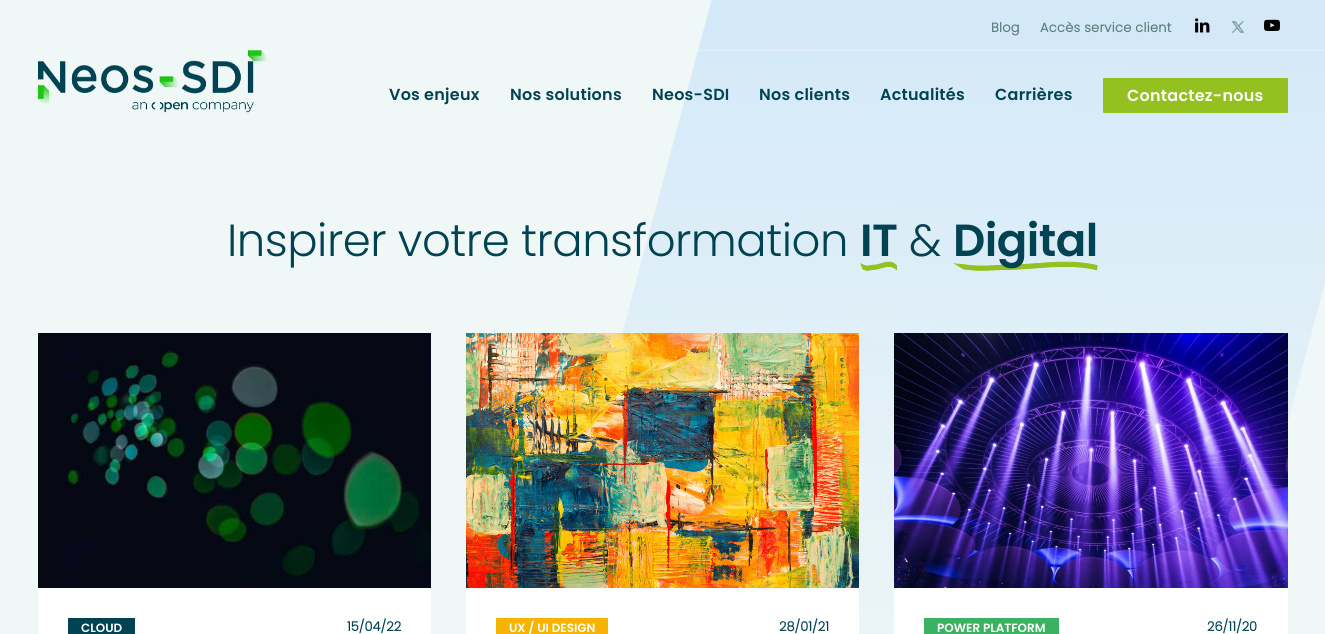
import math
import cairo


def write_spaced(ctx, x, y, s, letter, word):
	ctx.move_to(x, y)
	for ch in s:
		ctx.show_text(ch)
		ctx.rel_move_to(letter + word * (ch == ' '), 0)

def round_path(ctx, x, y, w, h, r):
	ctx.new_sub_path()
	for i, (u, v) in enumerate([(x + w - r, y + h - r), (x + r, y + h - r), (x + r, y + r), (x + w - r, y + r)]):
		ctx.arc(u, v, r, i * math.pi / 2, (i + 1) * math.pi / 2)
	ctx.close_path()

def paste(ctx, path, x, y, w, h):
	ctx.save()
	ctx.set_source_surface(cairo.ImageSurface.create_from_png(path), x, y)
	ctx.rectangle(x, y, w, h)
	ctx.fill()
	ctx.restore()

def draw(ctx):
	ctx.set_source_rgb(0.941, 0.965, 0.965)
	ctx.paint()
	gradient = cairo.LinearGradient(1003, -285, 985, 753)
	gradient.add_color_stop_rgba(0, 0.784, 0.89, 0.973, 1)
	gradient.add_color_stop_rgba(1, 0.941, 0.969, 0.969, 1)
	ctx.set_source(gradient)
	ctx.new_path()
	ctx.move_to(789, -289)
	ctx.line_to(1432, -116)
	ctx.line_to(1198, 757)
	ctx.line_to(555, 584)
	ctx.close_path()
	ctx.fill()
	paste(ctx, 'media/4.png', 38, 50, 229, 63)
	ctx.set_source_rgba(1, 1, 1, 0.25)
	ctx.rectangle(0, 50, 1325, 1)
	ctx.fill()
	ctx.select_font_face('Poppins', cairo.FONT_SLANT_NORMAL, cairo.FONT_WEIGHT_BOLD)
	ctx.set_font_size(13)
	ctx.set_source_rgb(0.353, 0.49, 0.49)
	write_spaced(ctx, 991, 32, 'Blog', 0.25, 0)
	write_spaced(ctx, 1040, 32, 'Accès service client', 0.25, 0)
	paste(ctx, 'media/1.png', 1195, 18, 15, 15)
	paste(ctx, 'media/2.png', 1232, 21, 12, 12)
	paste(ctx, 'media/3.png', 1264, 19, 16, 12)
	ctx.select_font_face('Poppins SemiBold')
	ctx.set_font_size(16)
	ctx.set_source_rgb(0.004, 0.263, 0.325)
	for x, y, s in [
		(389, 100, 'Vos enjeux'),
		(510, 100, 'Nos solutions'),
		(652, 100, 'Neos-SDI'),
		(759, 100, 'Nos clients'),
		(880, 100, 'Actualités'),
		(995, 100, 'Carrières'),
	]:
		write_spaced(ctx, x, y, s, 0.25, 0)
	ctx.set_source_rgb(0.58, 0.757, 0.122)
	round_path(ctx, 1103, 78, 185, 35, 1)
	ctx.fill()
	ctx.set_source_rgb(1, 1, 1)
	write_spaced(ctx, 1127, 101, 'Contactez-nous', 0.25, 0)
	ctx.select_font_face('Poppins Light')
	ctx.set_font_size(45)
	ctx.set_source_rgb(0.004, 0.263, 0.325)
	write_spaced(ctx, 227, 256, 'Inspirer votre transformation', -0.5, 0)
	ctx.select_font_face('Poppins SemiBold')
	write_spaced(ctx, 860, 256, 'IT', -0.5, 0)
	paste(ctx, 'media/5.png', 860, 261, 37, 10)
	ctx.select_font_face('Poppins Light')
	write_spaced(ctx, 909, 256, '&', -0.5, 0)
	paste(ctx, 'media/6.png', 953, 261, 145, 10)
	ctx.select_font_face('Poppins SemiBold')
	write_spaced(ctx, 953, 256, 'Digital', -0.5, 0)
	ctx.set_source_rgb(1, 1, 1)
	ctx.rectangle(38, 588, 393, 46)
	ctx.fill()
	paste(ctx, 'media/7.png', 38, 333, 393, 255)
	ctx.set_source_rgb(0.004, 0.263, 0.325)
	ctx.rectangle(68, 618, 67, 16)
	ctx.fill()
	ctx.set_font_size(12)
	ctx.set_source_rgb(1, 1, 1)
	ctx.move_to(81, 632)
	ctx.show_text('CLOUD')
	ctx.select_font_face('Poppins', cairo.FONT_SLANT_NORMAL, cairo.FONT_WEIGHT_BOLD)
	ctx.set_font_size(13)
	ctx.set_source_rgb(0.004, 0.263, 0.325)
	ctx.move_to(347, 631)
	ctx.show_text('15/04/22')
	ctx.set_source_rgb(1, 1, 1)
	ctx.rectangle(466, 588, 393, 46)
	ctx.fill()
	paste(ctx, 'media/8.png', 466, 333, 393, 255)
	ctx.set_source_rgb(0.961, 0.706, 0)
	ctx.rectangle(496, 618, 112, 16)
	ctx.fill()
	ctx.select_font_face('Poppins SemiBold')
	ctx.set_font_size(12)
	ctx.set_source_rgb(1, 1, 1)
	ctx.move_to(509, 632)
	ctx.show_text('UX / UI DESIGN')
	ctx.select_font_face('Poppins', cairo.FONT_SLANT_NORMAL, cairo.FONT_WEIGHT_BOLD)
	ctx.set_font_size(13)
	ctx.set_source_rgb(0.004, 0.263, 0.325)
	ctx.move_to(779, 631)
	ctx.show_text('28/01/21')
	ctx.set_source_rgb(1, 1, 1)
	ctx.rectangle(894, 588, 394, 46)
	ctx.fill()
	paste(ctx, 'media/9.png', 894, 333, 394, 255)
	ctx.set_source_rgb(0.231, 0.698, 0.376)
	ctx.rectangle(924, 618, 135, 16)
	ctx.fill()
	ctx.select_font_face('Poppins SemiBold')
	ctx.set_font_size(12)
	ctx.set_source_rgb(1, 1, 1)
	ctx.move_to(937, 632)
	ctx.show_text('POWER PLATFORM')
	ctx.select_font_face('Poppins', cairo.FONT_SLANT_NORMAL, cairo.FONT_WEIGHT_BOLD)
	ctx.set_font_size(13)
	ctx.set_source_rgb(0.004, 0.263, 0.325)
	ctx.move_to(1207, 631)
	ctx.show_text('26/11/20')


surface = cairo.ImageSurface(cairo.FORMAT_RGB24, 1325, 634)
ctx = cairo.Context(surface)
options = cairo.FontOptions()
options.set_hint_metrics(cairo.HINT_METRICS_OFF)
options.set_hint_style(cairo.HINT_STYLE_NONE)
ctx.set_font_options(options)
ctx.set_miter_limit(4)
draw(ctx)
surface.write_to_png('image.png')
